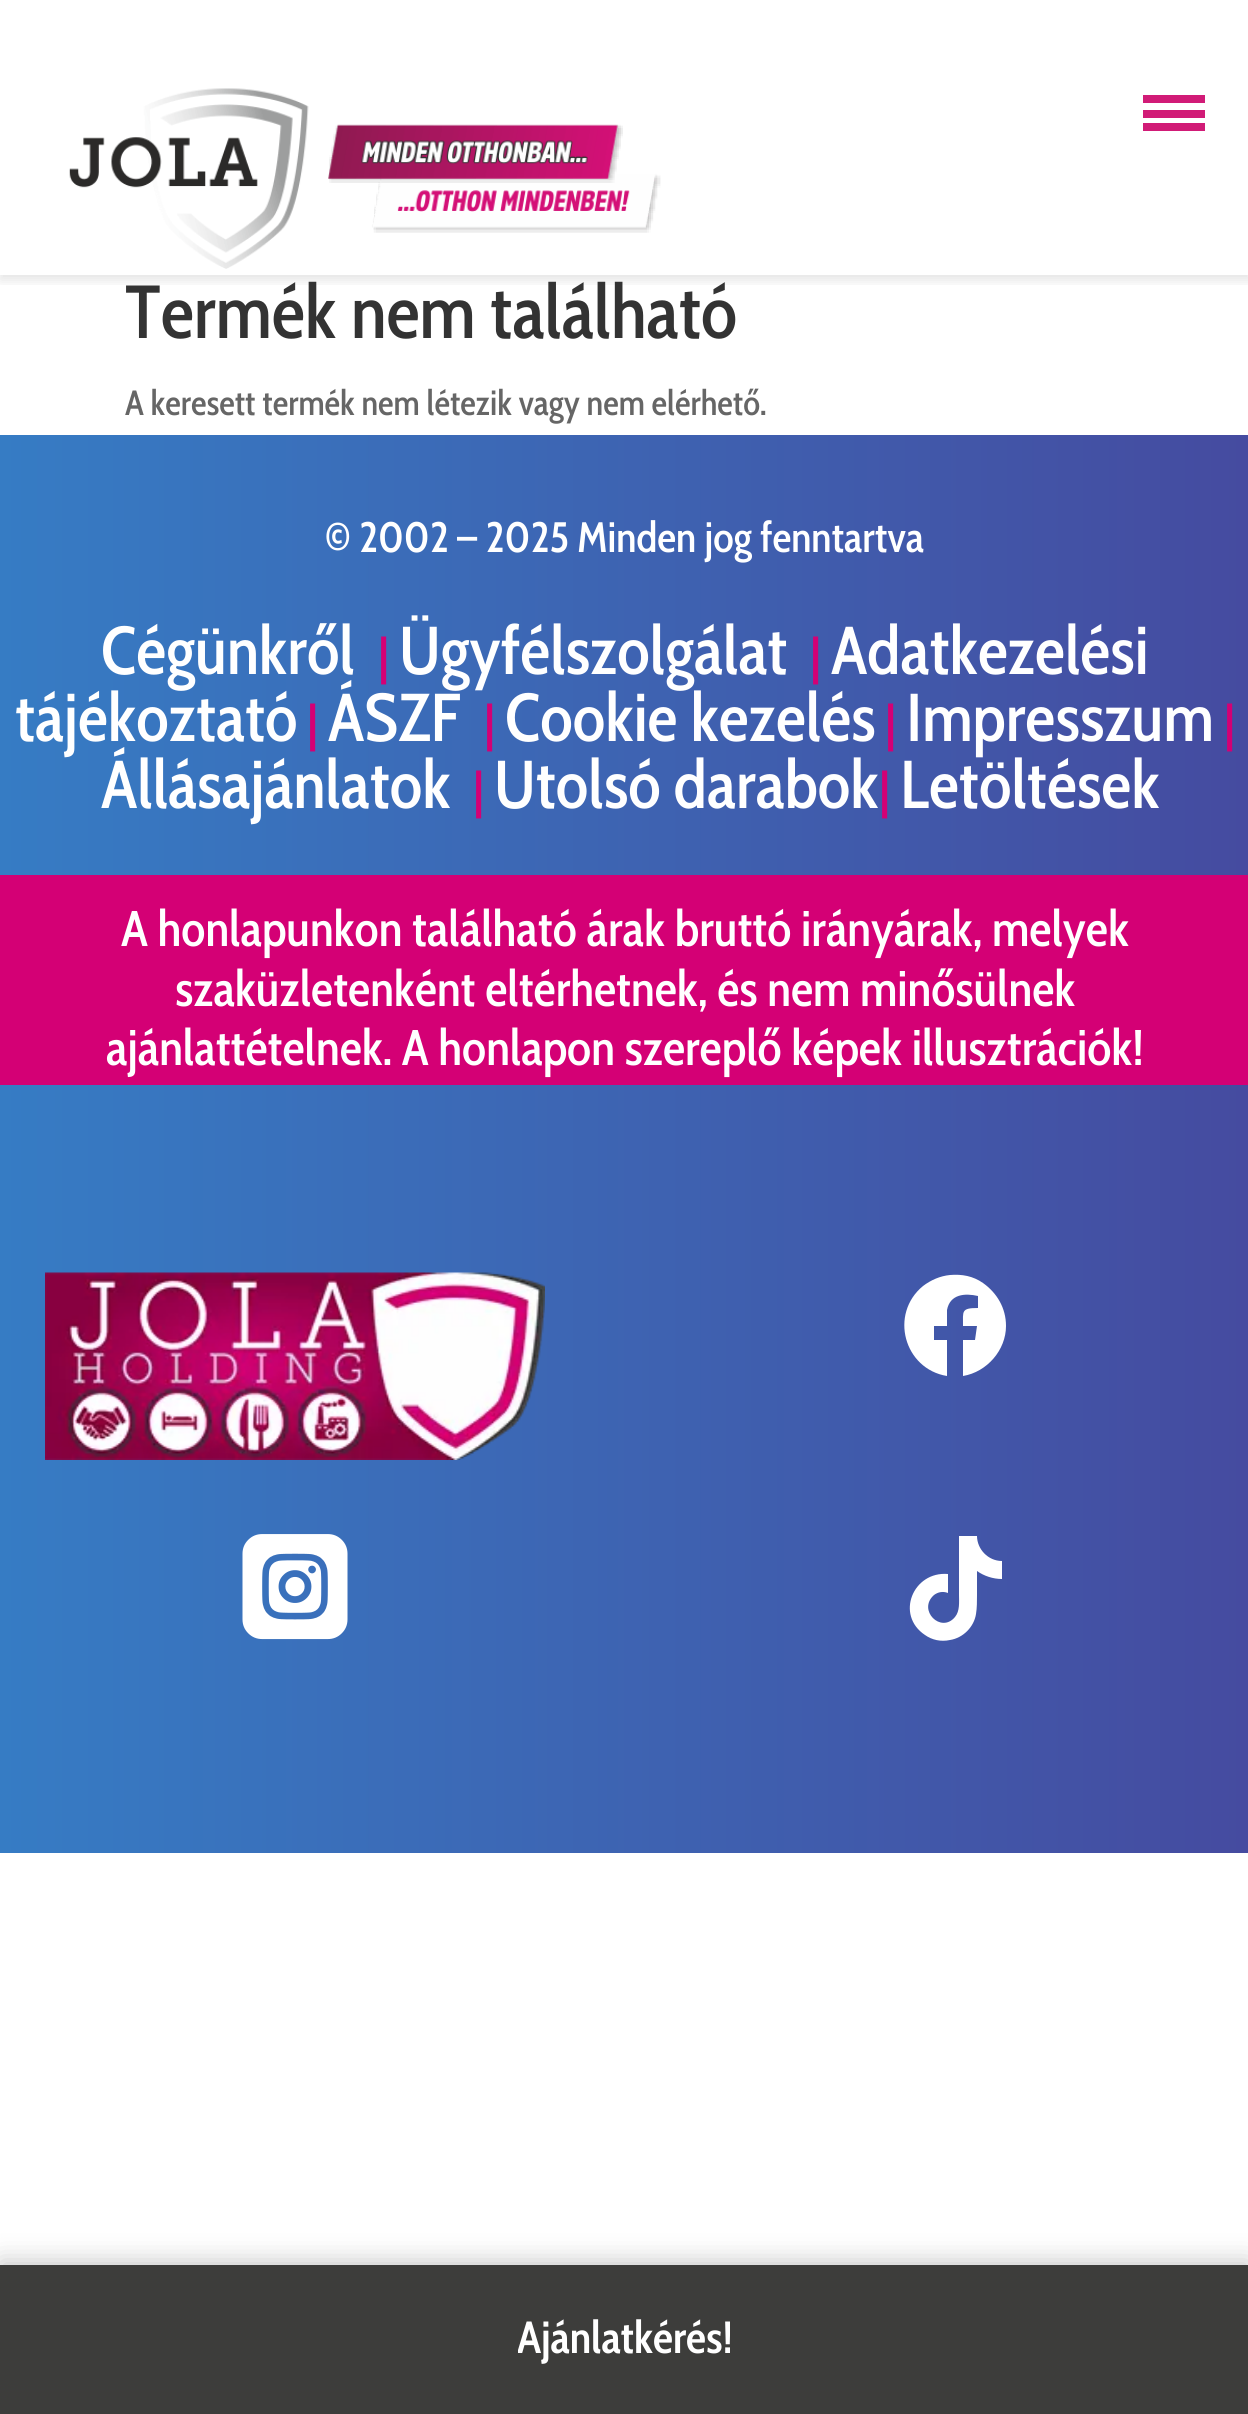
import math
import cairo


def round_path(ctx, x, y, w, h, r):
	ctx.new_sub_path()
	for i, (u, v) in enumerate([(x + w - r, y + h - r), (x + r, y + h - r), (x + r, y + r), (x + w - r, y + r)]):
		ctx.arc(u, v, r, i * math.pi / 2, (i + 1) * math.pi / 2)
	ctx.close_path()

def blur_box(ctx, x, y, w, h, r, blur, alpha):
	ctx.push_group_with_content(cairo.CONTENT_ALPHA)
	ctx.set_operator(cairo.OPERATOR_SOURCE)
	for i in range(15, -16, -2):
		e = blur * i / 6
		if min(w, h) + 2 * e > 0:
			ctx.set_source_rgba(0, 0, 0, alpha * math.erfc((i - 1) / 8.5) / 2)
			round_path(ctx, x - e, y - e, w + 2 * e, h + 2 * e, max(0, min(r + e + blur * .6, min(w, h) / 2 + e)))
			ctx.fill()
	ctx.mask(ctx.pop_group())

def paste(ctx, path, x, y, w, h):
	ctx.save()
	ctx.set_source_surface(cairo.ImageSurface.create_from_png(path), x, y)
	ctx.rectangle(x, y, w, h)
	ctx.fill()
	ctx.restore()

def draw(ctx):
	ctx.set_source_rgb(1, 1, 1)
	ctx.paint()
	ctx.save()
	ctx.rectangle(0, 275, 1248, 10)
	ctx.clip()
	ctx.set_source_rgb(0, 0, 0)
	blur_box(ctx, 0, 5, 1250, 275, 0, 6, 0.11)
	ctx.restore()
	paste(ctx, 'media/1.png', 69, 88, 592, 181)
	ctx.set_source_rgb(0.82, 0.106, 0.467)
	ctx.rectangle(1143, 95, 62, 8)
	ctx.rectangle(1143, 110, 62, 8)
	ctx.rectangle(1143, 123, 62, 8)
	ctx.fill()
	ctx.select_font_face('Cabin Condensed Medium')
	ctx.set_font_size(75)
	ctx.set_source_rgb(0.2, 0.2, 0.2)
	ctx.move_to(125, 338)
	ctx.show_text('Termék nem található')
	ctx.set_font_size(35)
	ctx.set_source_rgb(0.4, 0.4, 0.4)
	ctx.move_to(125, 415)
	ctx.show_text('A keresett termék nem létezik vagy nem elérhető.')
	gradient = cairo.LinearGradient(0, 1144, 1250, 1144)
	gradient.add_color_stop_rgba(0, 0.212, 0.486, 0.769, 1)
	gradient.add_color_stop_rgba(1, 0.271, 0.294, 0.627, 1)
	ctx.set_source(gradient)
	ctx.rectangle(0, 435, 1248, 1418)
	ctx.fill()
	ctx.set_font_size(42.5)
	ctx.set_source_rgb(1, 1, 1)
	ctx.move_to(325, 552)
	ctx.show_text('© 2002 – 2025 Minden jog fenntartva')
	ctx.set_font_size(67.5)
	ctx.move_to(101, 674)
	ctx.show_text('Cégünkről')
	ctx.set_font_size(50)
	ctx.set_source_rgb(0.831, 0, 0.459)
	ctx.move_to(378, 674)
	ctx.show_text('|')
	ctx.set_font_size(67.5)
	ctx.set_source_rgb(1, 1, 1)
	ctx.move_to(399, 674)
	ctx.show_text('Ügyfélszolgálat')
	ctx.set_font_size(50)
	ctx.set_source_rgb(0.831, 0, 0.459)
	ctx.move_to(810, 674)
	ctx.show_text('|')
	ctx.set_font_size(67.5)
	ctx.set_source_rgb(1, 1, 1)
	ctx.move_to(831, 674)
	ctx.show_text('Adatkezelési')
	ctx.move_to(15, 741)
	ctx.show_text('tájékoztató')
	ctx.set_font_size(50)
	ctx.set_source_rgb(0.831, 0, 0.459)
	ctx.move_to(307, 741)
	ctx.show_text('|')
	ctx.set_font_size(67.5)
	ctx.set_source_rgb(1, 1, 1)
	ctx.move_to(328, 741)
	ctx.show_text('ÁSZF')
	ctx.set_font_size(50)
	ctx.set_source_rgb(0.831, 0, 0.459)
	ctx.move_to(484, 741)
	ctx.show_text('|')
	ctx.set_font_size(67.5)
	ctx.set_source_rgb(1, 1, 1)
	ctx.move_to(505, 741)
	ctx.show_text('Cookie kezelés')
	ctx.set_font_size(50)
	ctx.set_source_rgb(0.831, 0, 0.459)
	ctx.move_to(885, 741)
	ctx.show_text('|')
	ctx.set_font_size(67.5)
	ctx.set_source_rgb(1, 1, 1)
	ctx.move_to(906, 741)
	ctx.show_text('Impresszum')
	ctx.set_font_size(50)
	ctx.set_source_rgb(0.831, 0, 0.459)
	ctx.move_to(1224, 741)
	ctx.show_text('|')
	ctx.set_font_size(67.5)
	ctx.set_source_rgb(1, 1, 1)
	ctx.move_to(101, 808)
	ctx.show_text('Állásajánlatok')
	ctx.set_font_size(50)
	ctx.set_source_rgb(0.831, 0, 0.459)
	ctx.move_to(473, 808)
	ctx.show_text('|')
	ctx.set_font_size(67.5)
	ctx.set_source_rgb(1, 1, 1)
	ctx.move_to(494, 808)
	ctx.show_text('Utolsó darabok')
	ctx.set_font_size(50)
	ctx.set_source_rgb(0.831, 0, 0.459)
	ctx.move_to(879, 808)
	ctx.show_text('|')
	ctx.set_font_size(67.5)
	ctx.set_source_rgb(1, 1, 1)
	ctx.move_to(900, 808)
	ctx.show_text('Letöltések')
	ctx.set_source_rgb(0.831, 0, 0.459)
	ctx.rectangle(0, 875, 1248, 210)
	ctx.fill()
	ctx.set_font_size(50)
	ctx.set_source_rgb(1, 1, 1)
	for x, y, s in [
		(121, 946, 'A honlapunkon található árak bruttó irányárak, melyek'),
		(175, 1006, 'szaküzletenként eltérhetnek, és nem minősülnek'),
		(106, 1065, 'ajánlattételnek. A honlapon szereplő képek illusztrációk!'),
	]:
		ctx.move_to(x, y)
		ctx.show_text(s)
	paste(ctx, 'media/2.png', 45, 1272, 500, 188)
	ctx.new_path()
	ctx.move_to(1006, 1326)
	ctx.curve_to(1006, 1350, 987, 1372, 963, 1376)
	ctx.line_to(963, 1340)
	ctx.line_to(975, 1340)
	ctx.line_to(977, 1326)
	ctx.line_to(963, 1326)
	ctx.curve_to(963, 1311, 961, 1308, 978, 1308)
	ctx.line_to(978, 1296)
	ctx.curve_to(965, 1293, 950, 1294, 947, 1310)
	ctx.line_to(947, 1326)
	ctx.line_to(934, 1326)
	ctx.line_to(934, 1340)
	ctx.line_to(947, 1340)
	ctx.line_to(947, 1376)
	ctx.curve_to(904, 1369, 889, 1314, 923, 1286)
	ctx.curve_to(931, 1280, 940, 1276, 950, 1275)
	ctx.curve_to(962, 1274, 973, 1276, 983, 1283)
	ctx.curve_to(997, 1293, 1006, 1308, 1006, 1326)
	ctx.close_path()
	ctx.fill()
	paste(ctx, 'media/3.png', 242, 1534, 106, 106)
	ctx.new_path()
	ctx.move_to(1002, 1579)
	ctx.curve_to(993, 1579, 984, 1576, 977, 1571)
	ctx.line_to(977, 1595)
	ctx.curve_to(977, 1601, 977, 1608, 976, 1614)
	ctx.curve_to(974, 1627, 963, 1638, 950, 1640)
	ctx.curve_to(941, 1642, 932, 1640, 925, 1635)
	ctx.curve_to(895, 1615, 913, 1571, 948, 1574)
	ctx.line_to(948, 1593)
	ctx.curve_to(943, 1591, 938, 1592, 934, 1595)
	ctx.curve_to(917, 1610, 941, 1634, 955, 1617)
	ctx.curve_to(960, 1611, 959, 1602, 959, 1595)
	ctx.line_to(959, 1536)
	ctx.line_to(977, 1536)
	ctx.curve_to(977, 1549, 988, 1561, 1002, 1561)
	ctx.close_path()
	ctx.fill()
	ctx.set_source_rgb(0, 0, 0)
	blur_box(ctx, 0, 2260, 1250, 150, 0, 12.5, 0.2)
	ctx.set_source_rgb(0.239, 0.239, 0.231)
	ctx.rectangle(0, 2265, 1248, 149)
	ctx.fill()
	ctx.save()
	ctx.rectangle(518, 2310, 215, 60)
	ctx.clip()
	ctx.select_font_face('Cabin Condensed SemiBold')
	ctx.set_font_size(45)
	ctx.set_source_rgb(1, 1, 1)
	ctx.move_to(517, 2353)
	ctx.show_text('Ajánlatkérés!')
	ctx.restore()


surface = cairo.ImageSurface(cairo.FORMAT_RGB24, 1248, 2414)
ctx = cairo.Context(surface)
options = cairo.FontOptions()
options.set_hint_metrics(cairo.HINT_METRICS_OFF)
options.set_hint_style(cairo.HINT_STYLE_NONE)
ctx.set_font_options(options)
ctx.set_miter_limit(4)
draw(ctx)
surface.write_to_png('image.png')
